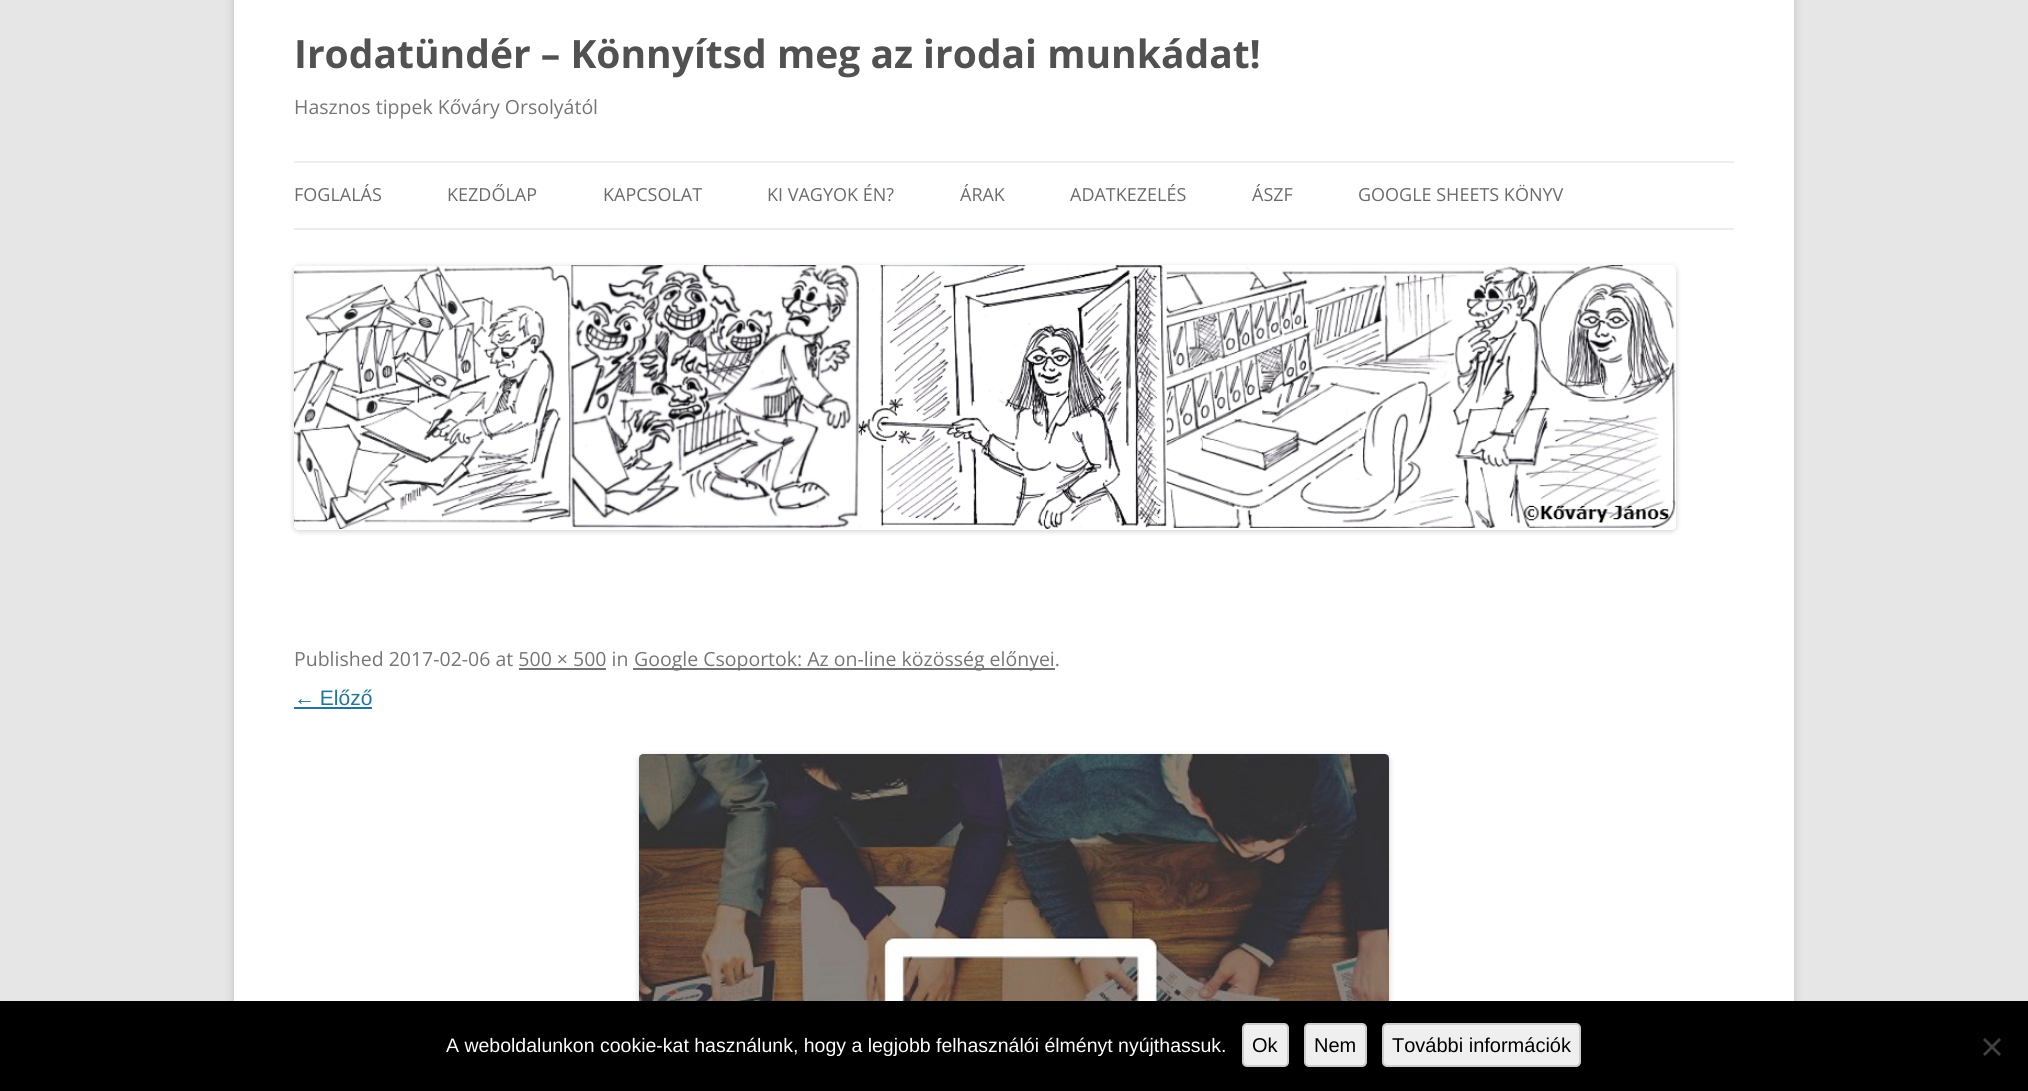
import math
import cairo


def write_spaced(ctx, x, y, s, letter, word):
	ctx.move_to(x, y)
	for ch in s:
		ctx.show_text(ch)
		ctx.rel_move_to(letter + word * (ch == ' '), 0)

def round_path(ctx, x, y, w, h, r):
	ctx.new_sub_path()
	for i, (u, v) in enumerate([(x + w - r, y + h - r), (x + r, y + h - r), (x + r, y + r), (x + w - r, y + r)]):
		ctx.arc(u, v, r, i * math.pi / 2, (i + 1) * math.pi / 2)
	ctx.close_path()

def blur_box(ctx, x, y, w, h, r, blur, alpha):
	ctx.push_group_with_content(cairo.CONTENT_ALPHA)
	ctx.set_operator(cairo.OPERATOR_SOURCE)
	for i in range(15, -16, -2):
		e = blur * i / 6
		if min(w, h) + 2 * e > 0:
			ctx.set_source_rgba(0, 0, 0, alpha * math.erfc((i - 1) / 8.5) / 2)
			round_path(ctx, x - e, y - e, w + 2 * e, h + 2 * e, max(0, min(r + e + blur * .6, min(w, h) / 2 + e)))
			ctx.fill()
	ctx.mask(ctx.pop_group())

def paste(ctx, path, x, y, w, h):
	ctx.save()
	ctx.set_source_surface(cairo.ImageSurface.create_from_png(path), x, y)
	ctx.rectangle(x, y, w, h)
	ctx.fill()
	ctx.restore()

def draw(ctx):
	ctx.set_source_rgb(0.902, 0.902, 0.902)
	ctx.paint()
	ctx.set_source_rgb(0.392, 0.392, 0.392)
	blur_box(ctx, 234, -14, 1560, 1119, 0, 4.5, 0.3)
	ctx.set_source_rgb(1, 1, 1)
	ctx.rectangle(234, 0, 1560, 1001)
	ctx.fill()
	ctx.select_font_face('Open Sans', cairo.FONT_SLANT_NORMAL, cairo.FONT_WEIGHT_BOLD)
	ctx.set_font_size(39)
	ctx.set_source_rgb(0.318, 0.318, 0.318)
	ctx.move_to(294, 68)
	ctx.show_text('Irodatündér – Könnyítsd meg az irodai munkádat!')
	ctx.select_font_face('Open Sans')
	ctx.set_font_size(19.5)
	ctx.set_source_rgb(0.459, 0.459, 0.459)
	ctx.move_to(294, 114)
	ctx.show_text('Hasznos tippek Kőváry Orsolyától')
	ctx.set_source_rgb(0.929, 0.929, 0.929)
	ctx.rectangle(294, 161, 1440, 2)
	ctx.fill()
	ctx.rectangle(294, 228, 1440, 2)
	ctx.fill()
	ctx.set_font_size(18)
	ctx.set_source_rgb(0.416, 0.416, 0.416)
	for x, y, s in [
		(294, 201, 'FOGLALÁS'),
		(447, 201, 'KEZDŐLAP'),
		(603, 201, 'KAPCSOLAT'),
		(767, 201, 'KI VAGYOK ÉN?'),
		(960, 201, 'ÁRAK'),
		(1070, 201, 'ADATKEZELÉS'),
		(1252, 201, 'ÁSZF'),
		(1358, 201, 'GOOGLE SHEETS KÖNYV'),
	]:
		ctx.move_to(x, y)
		ctx.show_text(s)
	ctx.save()
	ctx.set_fill_rule(cairo.FILL_RULE_EVEN_ODD)
	ctx.new_path()
	ctx.move_to(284, 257)
	ctx.line_to(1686, 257)
	ctx.line_to(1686, 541)
	ctx.line_to(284, 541)
	ctx.close_path()
	ctx.move_to(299, 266)
	ctx.line_to(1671, 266)
	ctx.curve_to(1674, 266, 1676, 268, 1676, 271)
	ctx.line_to(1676, 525)
	ctx.curve_to(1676, 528, 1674, 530, 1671, 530)
	ctx.line_to(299, 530)
	ctx.curve_to(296, 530, 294, 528, 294, 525)
	ctx.line_to(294, 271)
	ctx.curve_to(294, 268, 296, 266, 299, 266)
	ctx.close_path()
	ctx.clip()
	ctx.set_source_rgb(0, 0, 0)
	blur_box(ctx, 294, 267, 1382, 264, 5, 3, 0.2)
	ctx.restore()
	paste(ctx, 'media/1.png', 294, 265, 1382, 264)
	ctx.set_font_size(19.5)
	ctx.set_source_rgb(0.459, 0.459, 0.459)
	ctx.move_to(294, 666)
	ctx.show_text('Published 2017-02-06 at 500 × 500 in')
	ctx.rectangle(633, 668, 422, 2)
	ctx.fill()
	ctx.move_to(634, 666)
	ctx.show_text('Google Csoportok: Az on-line közösség előnyei.')
	ctx.rectangle(519, 668, 87, 2)
	ctx.fill()
	ctx.select_font_face('Liberation Sans')
	ctx.set_font_size(21)
	ctx.set_source_rgb(0.129, 0.459, 0.608)
	write_spaced(ctx, 294, 705, '← Előző', 0, -1)
	ctx.rectangle(294, 707, 78, 2)
	ctx.fill()
	ctx.set_source_rgb(0, 0, 0)
	blur_box(ctx, 639, 756, 750, 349, 5, 3, 0.2)
	paste(ctx, 'media/2.png', 639, 754, 750, 247)
	ctx.set_source_rgb(0, 0, 0)
	ctx.rectangle(0, 1001, 2028, 90)
	ctx.fill()
	ctx.set_font_size(19.5)
	ctx.set_source_rgb(1, 1, 1)
	ctx.move_to(446, 1052)
	ctx.show_text('A weboldalunkon cookie-kat használunk, hogy a legjobb felhasználói élményt nyújthassuk.')
	ctx.set_source_rgb(0.937, 0.937, 0.937)
	round_path(ctx, 1243, 1024, 45, 42, 4)
	ctx.fill_preserve()
	ctx.set_source_rgb(0.8, 0.8, 0.8)
	ctx.stroke()
	ctx.set_font_size(20)
	ctx.set_source_rgb(0, 0, 0)
	ctx.move_to(1252, 1052)
	ctx.show_text('Ok')
	ctx.set_source_rgb(0.937, 0.937, 0.937)
	round_path(ctx, 1305, 1024, 61, 42, 4)
	ctx.fill_preserve()
	ctx.set_source_rgb(0.8, 0.8, 0.8)
	ctx.stroke()
	ctx.set_source_rgb(0, 0, 0)
	ctx.move_to(1314, 1052)
	ctx.show_text('Nem')
	ctx.set_source_rgb(0.937, 0.937, 0.937)
	round_path(ctx, 1383, 1024, 197, 42, 4)
	ctx.fill_preserve()
	ctx.set_source_rgb(0.8, 0.8, 0.8)
	ctx.stroke()
	ctx.set_source_rgb(0, 0, 0)
	ctx.move_to(1392, 1052)
	ctx.show_text('További információk')
	ctx.set_source_rgb(0.251, 0.251, 0.251)
	ctx.new_path()
	ctx.move_to(1999, 1038)
	ctx.line_to(2001, 1040)
	ctx.line_to(1985, 1056)
	ctx.line_to(1983, 1054)
	ctx.close_path()
	ctx.fill()
	ctx.new_path()
	ctx.move_to(1983, 1040)
	ctx.line_to(1985, 1038)
	ctx.line_to(2001, 1054)
	ctx.line_to(1999, 1056)
	ctx.close_path()
	ctx.fill()


surface = cairo.ImageSurface(cairo.FORMAT_RGB24, 2028, 1091)
ctx = cairo.Context(surface)
options = cairo.FontOptions()
options.set_hint_metrics(cairo.HINT_METRICS_OFF)
options.set_hint_style(cairo.HINT_STYLE_NONE)
ctx.set_font_options(options)
ctx.set_miter_limit(4)
draw(ctx)
surface.write_to_png('image.png')
